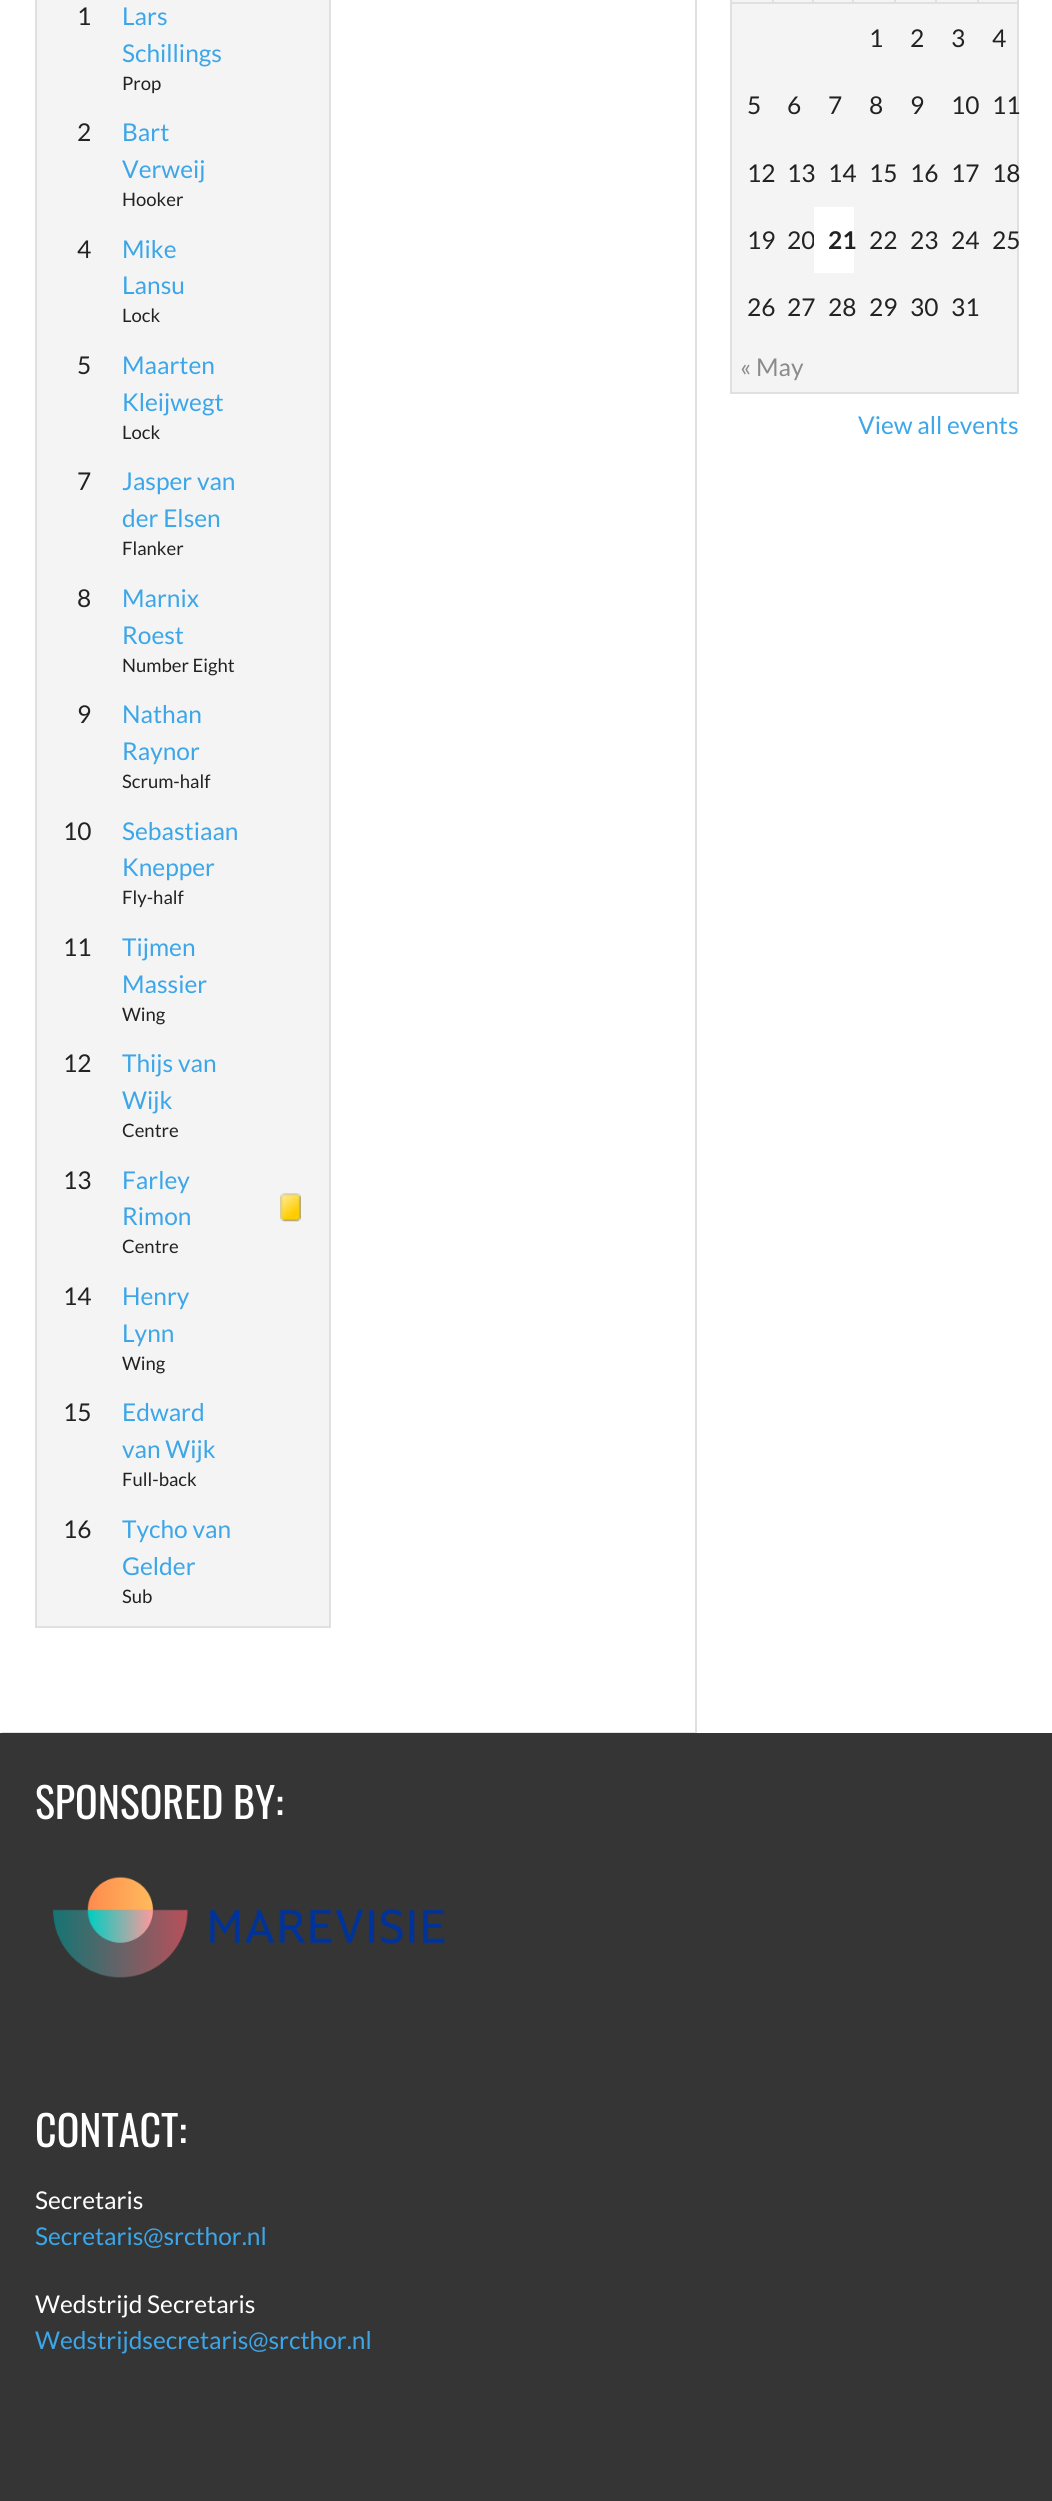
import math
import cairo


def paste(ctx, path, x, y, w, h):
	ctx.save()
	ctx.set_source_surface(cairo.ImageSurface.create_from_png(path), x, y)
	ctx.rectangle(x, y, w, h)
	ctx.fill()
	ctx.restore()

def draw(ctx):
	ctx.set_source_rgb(1, 1, 1)
	ctx.paint()
	ctx.set_source_rgb(0.878, 0.878, 0.878)
	ctx.new_path()
	ctx.move_to(2, -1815)
	ctx.line_to(695, -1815)
	ctx.line_to(695, 1732)
	ctx.line_to(2, 1732)
	ctx.line_to(2, 1733)
	ctx.line_to(697, 1733)
	ctx.line_to(697, -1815)
	ctx.close_path()
	ctx.fill()
	ctx.set_source_rgb(0.957, 0.957, 0.957)
	ctx.rectangle(37, 0, 292, 1626)
	ctx.fill()
	ctx.set_source_rgb(0.878, 0.878, 0.878)
	ctx.rectangle(329, 0, 2, 1628)
	ctx.rectangle(35, 1626, 296, 2)
	ctx.rectangle(35, 0, 2, 1628)
	ctx.fill()
	ctx.select_font_face('Lato')
	ctx.set_font_size(24.5)
	ctx.set_source_rgb(0.133, 0.133, 0.133)
	ctx.move_to(77, 25)
	ctx.show_text('1')
	ctx.set_source_rgb(0.235, 0.651, 0.91)
	ctx.move_to(122, 25)
	ctx.show_text('Lars')
	ctx.move_to(122, 62)
	ctx.show_text('Schillings')
	ctx.set_font_size(18.5)
	ctx.set_source_rgb(0.133, 0.133, 0.133)
	ctx.move_to(122, 90)
	ctx.show_text('Prop')
	ctx.set_font_size(24.5)
	ctx.move_to(77, 141)
	ctx.show_text('2')
	ctx.set_source_rgb(0.235, 0.651, 0.91)
	ctx.move_to(122, 141)
	ctx.show_text('Bart')
	ctx.move_to(122, 178)
	ctx.show_text('Verweij')
	ctx.set_font_size(18.5)
	ctx.set_source_rgb(0.133, 0.133, 0.133)
	ctx.move_to(122, 206)
	ctx.show_text('Hooker')
	ctx.set_font_size(24.5)
	ctx.move_to(77, 258)
	ctx.show_text('4')
	ctx.set_source_rgb(0.235, 0.651, 0.91)
	ctx.move_to(122, 258)
	ctx.show_text('Mike')
	ctx.move_to(122, 294)
	ctx.show_text('Lansu')
	ctx.set_font_size(18.5)
	ctx.set_source_rgb(0.133, 0.133, 0.133)
	ctx.move_to(122, 322)
	ctx.show_text('Lock')
	ctx.set_font_size(24.5)
	ctx.move_to(77, 374)
	ctx.show_text('5')
	ctx.set_source_rgb(0.235, 0.651, 0.91)
	ctx.move_to(122, 374)
	ctx.show_text('Maarten')
	ctx.move_to(122, 411)
	ctx.show_text('Kleijwegt')
	ctx.set_font_size(18.5)
	ctx.set_source_rgb(0.133, 0.133, 0.133)
	ctx.move_to(122, 439)
	ctx.show_text('Lock')
	ctx.set_font_size(24.5)
	ctx.move_to(77, 490)
	ctx.show_text('7')
	ctx.set_source_rgb(0.235, 0.651, 0.91)
	ctx.move_to(122, 490)
	ctx.show_text('Jasper van')
	ctx.move_to(122, 527)
	ctx.show_text('der Elsen')
	ctx.set_font_size(18.5)
	ctx.set_source_rgb(0.133, 0.133, 0.133)
	ctx.move_to(122, 555)
	ctx.show_text('Flanker')
	ctx.set_font_size(24.5)
	ctx.move_to(77, 607)
	ctx.show_text('8')
	ctx.set_source_rgb(0.235, 0.651, 0.91)
	ctx.move_to(122, 607)
	ctx.show_text('Marnix')
	ctx.move_to(122, 644)
	ctx.show_text('Roest')
	ctx.set_font_size(18.5)
	ctx.set_source_rgb(0.133, 0.133, 0.133)
	ctx.move_to(122, 672)
	ctx.show_text('Number Eight')
	ctx.set_font_size(24.5)
	ctx.move_to(77, 723)
	ctx.show_text('9')
	ctx.set_source_rgb(0.235, 0.651, 0.91)
	ctx.move_to(122, 723)
	ctx.show_text('Nathan')
	ctx.move_to(122, 760)
	ctx.show_text('Raynor')
	ctx.set_font_size(18.5)
	ctx.set_source_rgb(0.133, 0.133, 0.133)
	ctx.move_to(122, 788)
	ctx.show_text('Scrum-half')
	ctx.set_font_size(24.5)
	ctx.move_to(63, 840)
	ctx.show_text('10')
	ctx.set_source_rgb(0.235, 0.651, 0.91)
	ctx.move_to(122, 840)
	ctx.show_text('Sebastiaan')
	ctx.move_to(122, 876)
	ctx.show_text('Knepper')
	ctx.set_font_size(18.5)
	ctx.set_source_rgb(0.133, 0.133, 0.133)
	ctx.move_to(122, 904)
	ctx.show_text('Fly-half')
	ctx.set_font_size(24.5)
	ctx.move_to(63, 956)
	ctx.show_text('11')
	ctx.set_source_rgb(0.235, 0.651, 0.91)
	ctx.move_to(122, 956)
	ctx.show_text('Tijmen')
	ctx.move_to(122, 993)
	ctx.show_text('Massier')
	ctx.set_font_size(18.5)
	ctx.set_source_rgb(0.133, 0.133, 0.133)
	ctx.move_to(122, 1021)
	ctx.show_text('Wing')
	ctx.set_font_size(24.5)
	ctx.move_to(63, 1072)
	ctx.show_text('12')
	ctx.set_source_rgb(0.235, 0.651, 0.91)
	ctx.move_to(122, 1072)
	ctx.show_text('Thijs van')
	ctx.move_to(122, 1109)
	ctx.show_text('Wijk')
	ctx.set_font_size(18.5)
	ctx.set_source_rgb(0.133, 0.133, 0.133)
	ctx.move_to(122, 1137)
	ctx.show_text('Centre')
	ctx.set_font_size(24.5)
	ctx.move_to(63, 1189)
	ctx.show_text('13')
	ctx.set_source_rgb(0.235, 0.651, 0.91)
	ctx.move_to(122, 1189)
	ctx.show_text('Farley')
	ctx.move_to(122, 1225)
	ctx.show_text('Rimon')
	ctx.set_font_size(18.5)
	ctx.set_source_rgb(0.133, 0.133, 0.133)
	ctx.move_to(122, 1253)
	ctx.show_text('Centre')
	paste(ctx, 'media/1.png', 280, 1193, 21, 29)
	ctx.set_font_size(24.5)
	ctx.move_to(63, 1305)
	ctx.show_text('14')
	ctx.set_source_rgb(0.235, 0.651, 0.91)
	ctx.move_to(122, 1305)
	ctx.show_text('Henry')
	ctx.move_to(122, 1342)
	ctx.show_text('Lynn')
	ctx.set_font_size(18.5)
	ctx.set_source_rgb(0.133, 0.133, 0.133)
	ctx.move_to(122, 1370)
	ctx.show_text('Wing')
	ctx.set_font_size(24.5)
	ctx.move_to(63, 1421)
	ctx.show_text('15')
	ctx.set_source_rgb(0.235, 0.651, 0.91)
	ctx.move_to(122, 1421)
	ctx.show_text('Edward')
	ctx.move_to(122, 1458)
	ctx.show_text('van Wijk')
	ctx.set_font_size(18.5)
	ctx.set_source_rgb(0.133, 0.133, 0.133)
	ctx.move_to(122, 1486)
	ctx.show_text('Full-back')
	ctx.set_font_size(24.5)
	ctx.move_to(63, 1538)
	ctx.show_text('16')
	ctx.set_source_rgb(0.235, 0.651, 0.91)
	ctx.move_to(122, 1538)
	ctx.show_text('Tycho van')
	ctx.move_to(122, 1575)
	ctx.show_text('Gelder')
	ctx.set_font_size(18.5)
	ctx.set_source_rgb(0.133, 0.133, 0.133)
	ctx.move_to(122, 1603)
	ctx.show_text('Sub')
	ctx.set_source_rgb(0.957, 0.957, 0.957)
	ctx.rectangle(732, 0, 285, 392)
	ctx.fill()
	ctx.set_source_rgb(0.878, 0.878, 0.878)
	ctx.rectangle(1017, 0, 2, 394)
	ctx.rectangle(730, 392, 289, 2)
	ctx.rectangle(730, 0, 2, 394)
	ctx.rectangle(977, 2, 42, 2)
	ctx.rectangle(977, 0, 2, 4)
	ctx.rectangle(935, 2, 43, 2)
	ctx.rectangle(935, 0, 2, 4)
	ctx.rectangle(894, 2, 42, 2)
	ctx.rectangle(894, 0, 2, 4)
	ctx.rectangle(852, 2, 44, 2)
	ctx.rectangle(852, 0, 2, 4)
	ctx.rectangle(812, 2, 42, 2)
	ctx.rectangle(812, 0, 2, 4)
	ctx.rectangle(772, 2, 42, 2)
	ctx.rectangle(772, 0, 2, 4)
	ctx.rectangle(730, 2, 44, 2)
	ctx.fill()
	ctx.set_font_size(24.5)
	ctx.set_source_rgb(0.133, 0.133, 0.133)
	for x, y, s in [
		(869, 47, '1'),
		(910, 47, '2'),
		(951, 47, '3'),
		(992, 47, '4'),
		(747, 114, '5'),
		(787, 114, '6'),
		(828, 114, '7'),
		(869, 114, '8'),
		(910, 114, '9'),
		(951, 114, '10'),
		(992, 114, '11'),
		(747, 182, '12'),
		(787, 182, '13'),
		(828, 182, '14'),
		(869, 182, '15'),
		(910, 182, '16'),
		(951, 182, '17'),
		(992, 182, '18'),
		(747, 249, '19'),
		(787, 249, '20'),
	]:
		ctx.move_to(x, y)
		ctx.show_text(s)
	ctx.set_source_rgb(1, 1, 1)
	ctx.rectangle(814, 207, 40, 66)
	ctx.fill()
	ctx.select_font_face('Lato', cairo.FONT_SLANT_NORMAL, cairo.FONT_WEIGHT_BOLD)
	ctx.set_source_rgb(0.133, 0.133, 0.133)
	ctx.move_to(828, 249)
	ctx.show_text('21')
	ctx.select_font_face('Lato')
	for x, y, s in [
		(869, 249, '22'),
		(910, 249, '23'),
		(951, 249, '24'),
		(992, 249, '25'),
		(747, 316, '26'),
		(787, 316, '27'),
		(828, 316, '28'),
		(869, 316, '29'),
		(910, 316, '30'),
		(951, 316, '31'),
	]:
		ctx.move_to(x, y)
		ctx.show_text(s)
	ctx.set_source_rgb(0.545, 0.545, 0.545)
	ctx.move_to(740, 376)
	ctx.show_text('« May')
	ctx.set_source_rgb(0.235, 0.651, 0.91)
	ctx.move_to(858, 434)
	ctx.show_text('View all events')
	ctx.set_source_rgb(0.208, 0.208, 0.208)
	ctx.rectangle(0, 1733, 1052, 768)
	ctx.fill()
	ctx.select_font_face('Oswald')
	ctx.set_font_size(42)
	ctx.set_source_rgb(1, 1, 1)
	ctx.move_to(35, 1819)
	ctx.show_text('SPONSORED BY:')
	paste(ctx, 'media/2.png', 53, 1876, 392, 102)
	ctx.move_to(35, 2147)
	ctx.show_text('CONTACT:')
	ctx.select_font_face('Lato')
	ctx.set_font_size(24.5)
	ctx.move_to(35, 2209)
	ctx.show_text('Secretaris')
	ctx.set_source_rgb(0.235, 0.651, 0.91)
	ctx.move_to(35, 2245)
	ctx.show_text('Secretaris@srcthor.nl')
	ctx.set_source_rgb(1, 1, 1)
	ctx.move_to(35, 2313)
	ctx.show_text('Wedstrijd Secretaris')
	ctx.set_source_rgb(0.235, 0.651, 0.91)
	ctx.move_to(35, 2349)
	ctx.show_text('Wedstrijdsecretaris@srcthor.nl')


surface = cairo.ImageSurface(cairo.FORMAT_RGB24, 1052, 2501)
ctx = cairo.Context(surface)
options = cairo.FontOptions()
options.set_hint_metrics(cairo.HINT_METRICS_OFF)
options.set_hint_style(cairo.HINT_STYLE_NONE)
ctx.set_font_options(options)
ctx.set_miter_limit(4)
draw(ctx)
surface.write_to_png('image.png')
